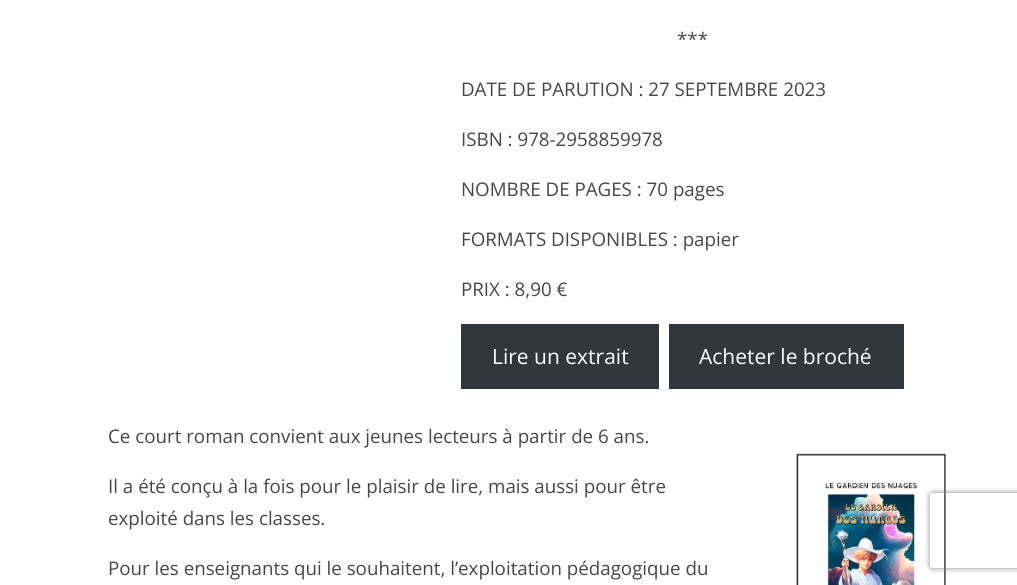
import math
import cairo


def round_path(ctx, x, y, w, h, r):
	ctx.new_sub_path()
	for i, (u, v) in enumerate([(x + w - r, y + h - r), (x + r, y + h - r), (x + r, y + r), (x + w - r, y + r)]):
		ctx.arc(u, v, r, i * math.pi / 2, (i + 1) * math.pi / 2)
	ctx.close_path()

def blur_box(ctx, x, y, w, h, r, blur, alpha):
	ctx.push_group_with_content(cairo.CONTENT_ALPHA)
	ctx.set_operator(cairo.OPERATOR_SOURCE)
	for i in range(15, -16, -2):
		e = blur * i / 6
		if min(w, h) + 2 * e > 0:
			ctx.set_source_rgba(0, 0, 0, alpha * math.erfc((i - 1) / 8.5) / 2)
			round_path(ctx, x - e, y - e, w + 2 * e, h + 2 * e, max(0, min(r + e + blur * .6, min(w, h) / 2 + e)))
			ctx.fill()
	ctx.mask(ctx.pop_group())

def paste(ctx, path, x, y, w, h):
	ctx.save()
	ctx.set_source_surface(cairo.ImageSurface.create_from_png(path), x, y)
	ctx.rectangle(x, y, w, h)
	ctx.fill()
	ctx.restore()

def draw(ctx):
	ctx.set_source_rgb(1, 1, 1)
	ctx.paint()
	ctx.select_font_face('Open Sans')
	ctx.set_font_size(18.75)
	ctx.set_source_rgb(0.275, 0.275, 0.275)
	for x, y, s in [
		(677, 46, '***'),
		(461, 96, 'DATE DE PARUTION : 27 SEPTEMBRE 2023'),
		(461, 146, 'ISBN : 978-2958859978'),
		(461, 196, 'NOMBRE DE PAGES : 70 pages'),
		(461, 246, 'FORMATS DISPONIBLES : papier'),
		(461, 296, 'PRIX : 8,90 €'),
	]:
		ctx.move_to(x, y)
		ctx.show_text(s)
	ctx.set_source_rgb(0.196, 0.216, 0.235)
	ctx.rectangle(461, 324, 198, 65)
	ctx.fill()
	ctx.set_font_size(21)
	ctx.set_source_rgb(1, 1, 1)
	ctx.move_to(492, 364)
	ctx.show_text('Lire un extrait')
	ctx.set_source_rgb(0.196, 0.216, 0.235)
	ctx.rectangle(669, 324, 235, 65)
	ctx.fill()
	ctx.set_source_rgb(1, 1, 1)
	ctx.move_to(699, 364)
	ctx.show_text('Acheter le broché')
	ctx.set_font_size(18.75)
	ctx.set_source_rgb(0.275, 0.275, 0.275)
	for x, y, s in [
		(108, 443, 'Ce court roman convient aux jeunes lecteurs à partir de 6 ans.'),
		(108, 493, 'Il a été conçu à la fois pour le plaisir de lire, mais aussi pour être'),
		(108, 525, 'exploité dans les classes.'),
		(108, 575, 'Pour les enseignants qui le souhaitent, l’exploitation pédagogique du'),
	]:
		ctx.move_to(x, y)
		ctx.show_text(s)
	paste(ctx, 'media/1.png', 796, 453, 150, 132)
	ctx.save()
	ctx.set_fill_rule(cairo.FILL_RULE_EVEN_ODD)
	ctx.new_path()
	ctx.move_to(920, 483)
	ctx.line_to(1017, 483)
	ctx.line_to(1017, 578)
	ctx.line_to(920, 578)
	ctx.close_path()
	ctx.move_to(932.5, 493)
	ctx.line_to(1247.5, 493)
	ctx.curve_to(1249, 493, 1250, 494, 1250, 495.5)
	ctx.line_to(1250, 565.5)
	ctx.curve_to(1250, 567, 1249, 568, 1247.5, 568)
	ctx.line_to(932.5, 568)
	ctx.curve_to(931, 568, 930, 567, 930, 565.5)
	ctx.line_to(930, 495.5)
	ctx.curve_to(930, 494, 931, 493, 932.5, 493)
	ctx.close_path()
	ctx.clip()
	ctx.set_source_rgb(0.502, 0.502, 0.502)
	blur_box(ctx, 930, 493, 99, 75, 2.5, 3, 1)
	ctx.restore()


surface = cairo.ImageSurface(cairo.FORMAT_RGB24, 1017, 585)
ctx = cairo.Context(surface)
options = cairo.FontOptions()
options.set_hint_metrics(cairo.HINT_METRICS_OFF)
options.set_hint_style(cairo.HINT_STYLE_NONE)
ctx.set_font_options(options)
ctx.set_miter_limit(4)
draw(ctx)
surface.write_to_png('image.png')
